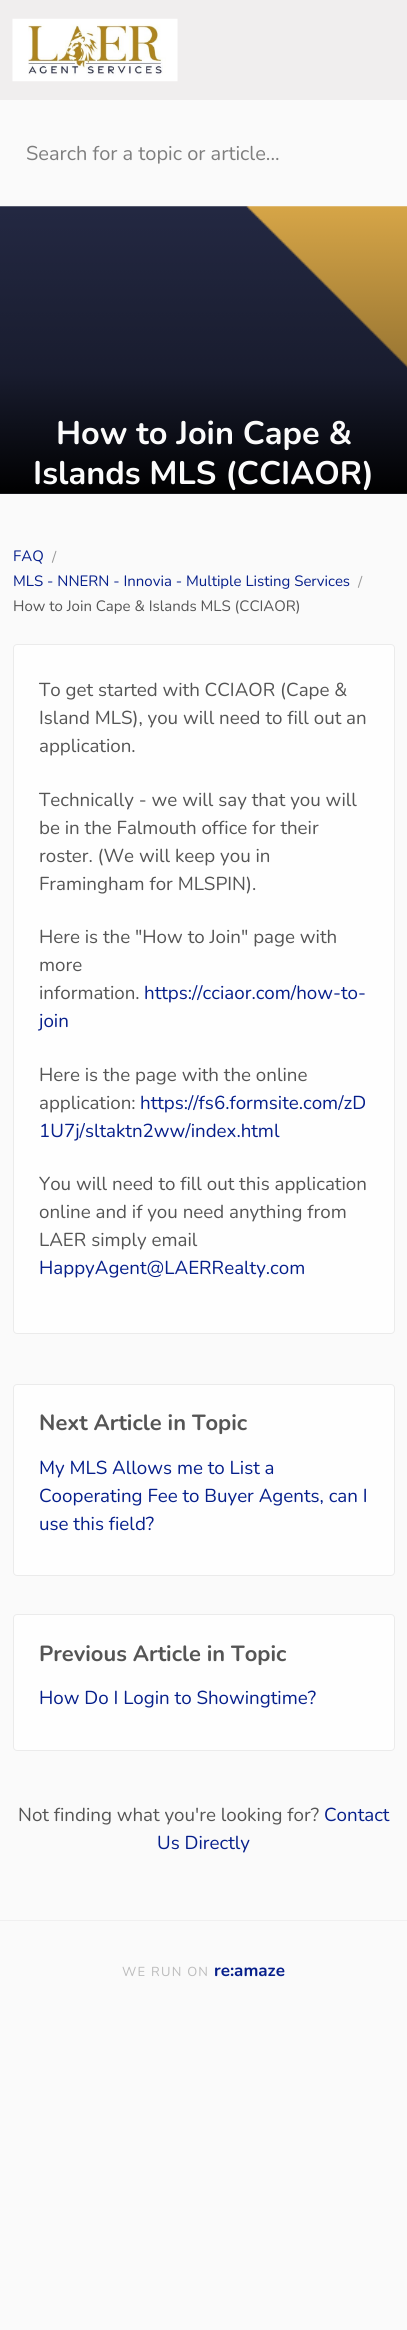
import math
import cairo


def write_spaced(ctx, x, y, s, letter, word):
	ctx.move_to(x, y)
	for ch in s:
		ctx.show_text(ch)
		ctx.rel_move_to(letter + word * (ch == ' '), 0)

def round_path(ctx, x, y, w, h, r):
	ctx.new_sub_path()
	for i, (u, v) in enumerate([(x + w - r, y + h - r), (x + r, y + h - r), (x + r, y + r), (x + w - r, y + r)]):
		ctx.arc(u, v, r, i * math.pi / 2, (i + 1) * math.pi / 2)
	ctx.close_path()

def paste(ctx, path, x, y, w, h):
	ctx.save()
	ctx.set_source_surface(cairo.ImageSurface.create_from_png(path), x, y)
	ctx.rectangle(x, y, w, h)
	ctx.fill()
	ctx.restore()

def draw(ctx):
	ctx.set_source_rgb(0.98, 0.98, 0.98)
	ctx.paint()
	ctx.set_source_rgb(0.941, 0.933, 0.933)
	ctx.rectangle(0, 0, 407, 100)
	ctx.fill()
	paste(ctx, 'media/1.png', 12, 18, 166, 64)
	ctx.select_font_face('Nunito')
	ctx.set_font_size(20)
	ctx.set_source_rgb(0.494, 0.494, 0.494)
	ctx.move_to(26, 160)
	ctx.show_text('Search for a topic or article...')
	paste(ctx, 'media/2.png', 0, 206, 407, 288)
	ctx.select_font_face('Nunito', cairo.FONT_SLANT_NORMAL, cairo.FONT_WEIGHT_BOLD)
	ctx.set_font_size(32.5)
	ctx.set_source_rgb(0.984, 0.984, 0.984)
	ctx.move_to(56, 444)
	ctx.show_text('How to Join Cape &')
	ctx.move_to(33, 484)
	ctx.show_text('Islands MLS (CCIAOR)')
	ctx.select_font_face('Nunito')
	ctx.set_font_size(15)
	ctx.set_source_rgb(0.024, 0.122, 0.545)
	ctx.move_to(13, 561)
	ctx.show_text('FAQ')
	ctx.set_source_rgb(0.6, 0.6, 0.6)
	ctx.move_to(52, 562)
	ctx.show_text('/')
	ctx.set_source_rgb(0.024, 0.122, 0.545)
	ctx.move_to(13, 586)
	ctx.show_text('MLS - NNERN - Innovia - Multiple Listing Services')
	ctx.set_source_rgb(0.6, 0.6, 0.6)
	ctx.move_to(358, 587)
	ctx.show_text('/')
	ctx.set_source_rgb(0.333, 0.333, 0.333)
	ctx.move_to(13, 611)
	ctx.show_text('How to Join Cape & Islands MLS (CCIAOR)')
	ctx.set_source_rgb(0.996, 0.996, 0.996)
	round_path(ctx, 13.5, 644.5, 381, 689, 3.5)
	ctx.fill_preserve()
	ctx.set_source_rgb(0.918, 0.918, 0.918)
	ctx.set_line_width(1)
	ctx.stroke()
	ctx.set_font_size(18.75)
	ctx.set_source_rgb(0.333, 0.333, 0.333)
	for x, y, s in [
		(39, 696, 'To get started with CCIAOR (Cape &'),
		(39, 724, 'Island MLS), you will need to fill out an'),
		(39, 752, 'application.'),
		(39, 806, 'Technically - we will say that you will'),
		(39, 834, 'be in the Falmouth office for their'),
		(39, 862, 'roster. (We will keep you in'),
		(39, 890, 'Framingham for MLSPIN).'),
		(39, 943, 'Here is the "How to Join" page with'),
		(39, 971, 'more'),
		(39, 999, 'information.'),
	]:
		ctx.move_to(x, y)
		ctx.show_text(s)
	ctx.set_source_rgb(0.024, 0.122, 0.545)
	ctx.move_to(144, 999)
	ctx.show_text('https://cciaor.com/how-to-')
	ctx.move_to(39, 1027)
	ctx.show_text('join')
	ctx.set_source_rgb(0.333, 0.333, 0.333)
	ctx.move_to(39, 1081)
	ctx.show_text('Here is the page with the online')
	ctx.move_to(39, 1109)
	ctx.show_text('application:')
	ctx.set_source_rgb(0.024, 0.122, 0.545)
	ctx.move_to(140, 1109)
	ctx.show_text('https://fs6.formsite.com/zD')
	ctx.move_to(39, 1137)
	ctx.show_text('1U7j/sltaktn2ww/index.html')
	ctx.set_source_rgb(0.333, 0.333, 0.333)
	for x, y, s in [
		(39, 1190, 'You will need to fill out this application'),
		(39, 1218, 'online and if you need anything from'),
		(39, 1246, 'LAER simply email'),
	]:
		ctx.move_to(x, y)
		ctx.show_text(s)
	ctx.set_source_rgb(0.024, 0.122, 0.545)
	ctx.move_to(39, 1274)
	ctx.show_text('HappyAgent@LAERRealty.com')
	ctx.set_source_rgb(0.996, 0.996, 0.996)
	round_path(ctx, 13.5, 1384.5, 381, 191, 3.5)
	ctx.fill_preserve()
	ctx.set_source_rgb(0.918, 0.918, 0.918)
	ctx.stroke()
	ctx.select_font_face('Nunito', cairo.FONT_SLANT_NORMAL, cairo.FONT_WEIGHT_BOLD)
	ctx.set_font_size(21.9)
	ctx.set_source_rgb(0.333, 0.333, 0.333)
	ctx.move_to(39, 1430)
	ctx.show_text('Next Article in Topic')
	ctx.select_font_face('Nunito')
	ctx.set_font_size(18.75)
	ctx.set_source_rgb(0.024, 0.122, 0.545)
	for x, y, s in [
		(39, 1474, 'My MLS Allows me to List a'),
		(39, 1502, 'Cooperating Fee to Buyer Agents, can I'),
		(39, 1530, 'use this field?'),
	]:
		ctx.move_to(x, y)
		ctx.show_text(s)
	ctx.set_source_rgb(0.996, 0.996, 0.996)
	round_path(ctx, 13.5, 1614.5, 381, 136, 3.5)
	ctx.fill_preserve()
	ctx.set_source_rgb(0.918, 0.918, 0.918)
	ctx.stroke()
	ctx.select_font_face('Nunito', cairo.FONT_SLANT_NORMAL, cairo.FONT_WEIGHT_BOLD)
	ctx.set_font_size(21.9)
	ctx.set_source_rgb(0.333, 0.333, 0.333)
	ctx.move_to(39, 1661)
	ctx.show_text('Previous Article in Topic')
	ctx.select_font_face('Nunito')
	ctx.set_font_size(18.75)
	ctx.set_source_rgb(0.024, 0.122, 0.545)
	ctx.move_to(39, 1704)
	ctx.show_text('How Do I Login to Showingtime?')
	ctx.set_source_rgb(0.333, 0.333, 0.333)
	ctx.move_to(18, 1821)
	ctx.show_text('Not finding what you\'re looking for?')
	ctx.set_source_rgb(0.024, 0.122, 0.545)
	ctx.move_to(324, 1821)
	ctx.show_text('Contact')
	ctx.move_to(157, 1849)
	ctx.show_text('Us Directly')
	ctx.set_source_rgb(0.941, 0.941, 0.941)
	ctx.rectangle(0, 1920, 407, 1)
	ctx.fill()
	ctx.set_font_size(13)
	ctx.set_source_rgb(0.733, 0.733, 0.733)
	write_spaced(ctx, 122, 1976, 'WE RUN ON', 1.25, 0)
	ctx.select_font_face('Nunito', cairo.FONT_SLANT_NORMAL, cairo.FONT_WEIGHT_BOLD)
	ctx.set_font_size(17)
	ctx.set_source_rgb(0.024, 0.122, 0.545)
	ctx.move_to(214, 1976)
	ctx.show_text('re:amaze')


surface = cairo.ImageSurface(cairo.FORMAT_RGB24, 407, 2330)
ctx = cairo.Context(surface)
options = cairo.FontOptions()
options.set_hint_metrics(cairo.HINT_METRICS_OFF)
options.set_hint_style(cairo.HINT_STYLE_NONE)
ctx.set_font_options(options)
ctx.set_miter_limit(4)
draw(ctx)
surface.write_to_png('image.png')
